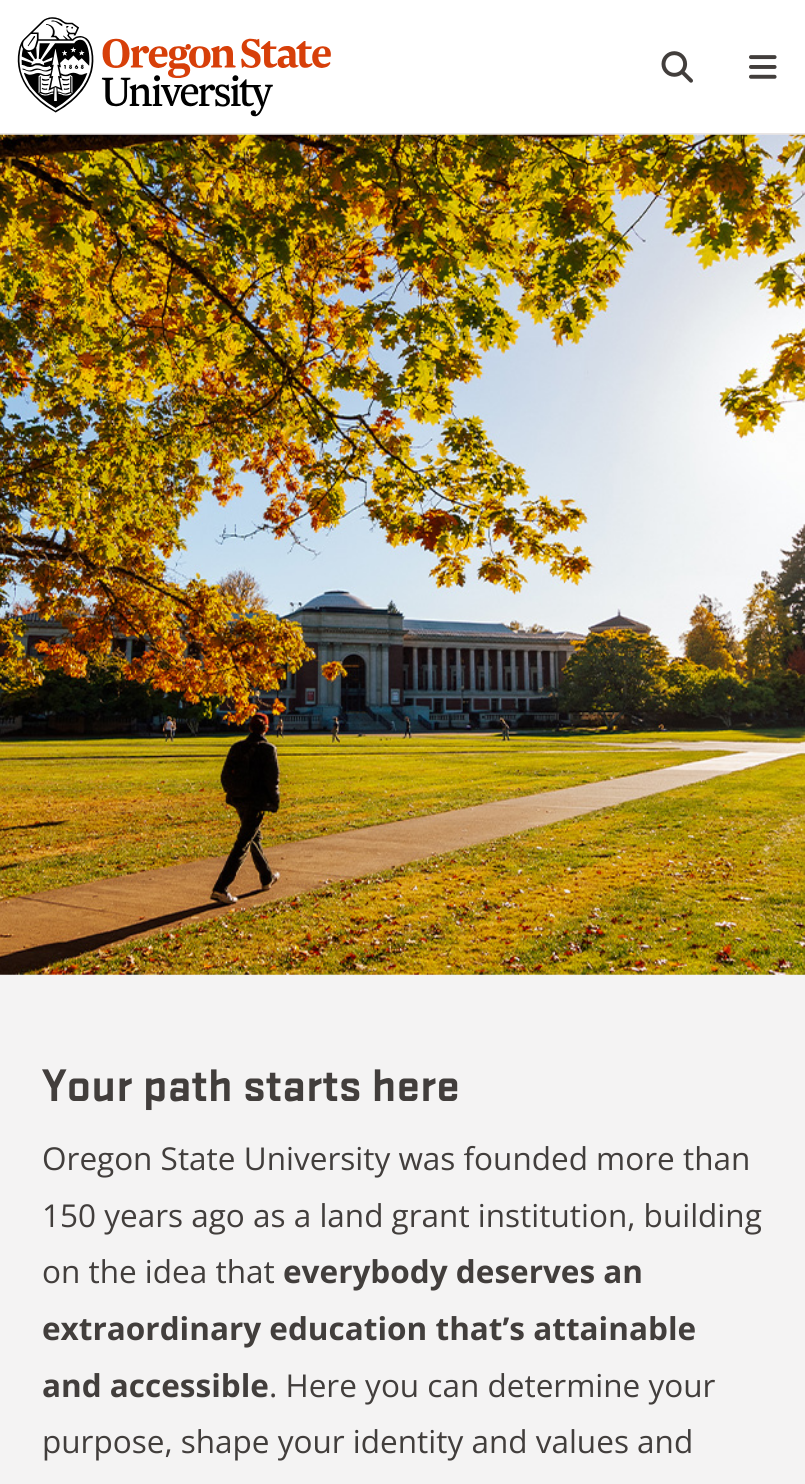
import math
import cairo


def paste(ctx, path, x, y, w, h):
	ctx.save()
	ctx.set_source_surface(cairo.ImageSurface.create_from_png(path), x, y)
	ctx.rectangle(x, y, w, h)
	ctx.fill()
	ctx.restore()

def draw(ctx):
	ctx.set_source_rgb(0.957, 0.953, 0.953)
	ctx.paint()
	ctx.set_source_rgb(1, 1, 1)
	ctx.rectangle(0, 0, 805, 133)
	ctx.fill()
	ctx.set_source_rgb(0.914, 0.898, 0.894)
	ctx.rectangle(0, 133, 805, 2)
	ctx.fill()
	paste(ctx, 'media/1.png', 17, 17, 314, 100)
	paste(ctx, 'media/2.png', 661, 51, 32, 32)
	paste(ctx, 'media/3.png', 749, 55, 28, 24)
	paste(ctx, 'media/4.png', 0, 134, 805, 841)
	ctx.select_font_face('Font', cairo.FONT_SLANT_NORMAL, cairo.FONT_WEIGHT_BOLD)
	ctx.set_font_size(47.5)
	ctx.set_source_rgb(0.259, 0.243, 0.235)
	ctx.move_to(42, 1101)
	ctx.show_text('Your path starts here')
	ctx.select_font_face('Open Sans')
	ctx.set_font_size(31.5)
	for x, y, s in [
		(42, 1170, 'Oregon State University was founded more than'),
		(42, 1227, '150 years ago as a land grant institution, building'),
		(42, 1283, 'on the idea that'),
	]:
		ctx.move_to(x, y)
		ctx.show_text(s)
	ctx.select_font_face('Open Sans', cairo.FONT_SLANT_NORMAL, cairo.FONT_WEIGHT_BOLD)
	for x, y, s in [
		(283, 1283, 'everybody deserves an'),
		(42, 1340, 'extraordinary education that’s attainable'),
		(42, 1397, 'and accessible'),
	]:
		ctx.move_to(x, y)
		ctx.show_text(s)
	ctx.select_font_face('Open Sans')
	ctx.move_to(269, 1397)
	ctx.show_text('. Here you can determine your')
	ctx.move_to(42, 1453)
	ctx.show_text('purpose, shape your identity and values and')


surface = cairo.ImageSurface(cairo.FORMAT_RGB24, 805, 1484)
ctx = cairo.Context(surface)
options = cairo.FontOptions()
options.set_hint_metrics(cairo.HINT_METRICS_OFF)
options.set_hint_style(cairo.HINT_STYLE_NONE)
ctx.set_font_options(options)
ctx.set_miter_limit(4)
draw(ctx)
surface.write_to_png('image.png')
